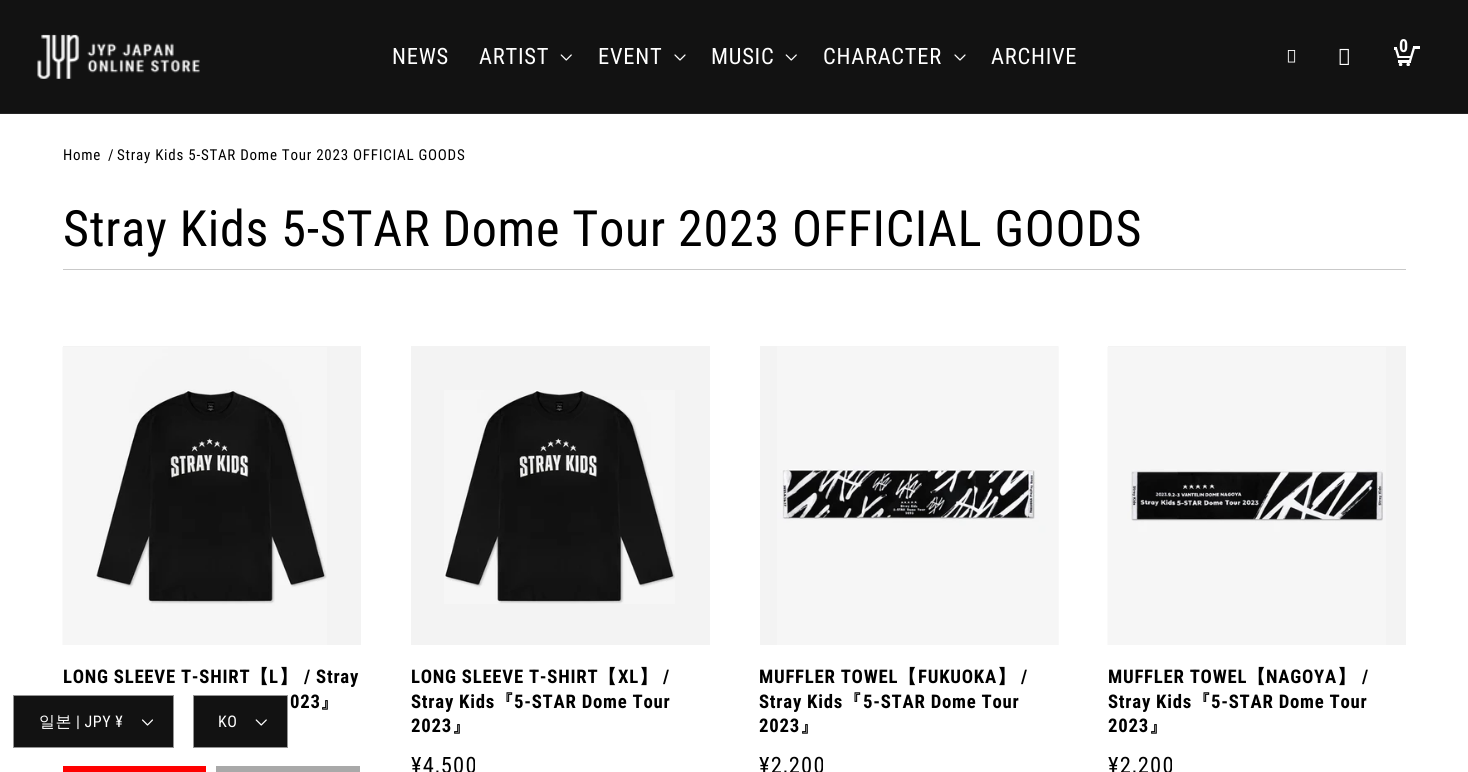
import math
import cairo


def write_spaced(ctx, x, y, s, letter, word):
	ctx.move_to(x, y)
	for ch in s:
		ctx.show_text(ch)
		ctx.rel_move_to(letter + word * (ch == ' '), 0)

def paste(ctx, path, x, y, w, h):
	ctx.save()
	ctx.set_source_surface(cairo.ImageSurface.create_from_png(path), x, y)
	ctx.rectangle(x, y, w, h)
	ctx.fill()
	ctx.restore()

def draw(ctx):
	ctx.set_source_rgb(1, 1, 1)
	ctx.paint()
	ctx.set_source_rgb(0.071, 0.071, 0.071)
	ctx.rectangle(0, 0, 1468, 113)
	ctx.fill()
	ctx.set_source_rgb(0.145, 0.145, 0.145)
	ctx.rectangle(0, 113, 1468, 1)
	ctx.fill()
	paste(ctx, 'media/1.png', 37, 34, 163, 45)
	ctx.select_font_face('Roboto Condensed')
	ctx.set_font_size(22.5)
	ctx.set_source_rgb(1, 1, 1)
	write_spaced(ctx, 392, 64, 'NEWS', 0.75, 0)
	write_spaced(ctx, 479, 64, 'ARTIST', 0.75, 0)
	paste(ctx, 'media/2.png', 560, 54, 12, 7)
	write_spaced(ctx, 598, 64, 'EVENT', 0.75, 0)
	paste(ctx, 'media/3.png', 674, 54, 12, 7)
	write_spaced(ctx, 711, 64, 'MUSIC', 0.75, 0)
	paste(ctx, 'media/2.png', 785, 54, 12, 7)
	write_spaced(ctx, 823, 64, 'CHARACTER', 0.75, 0)
	paste(ctx, 'media/3.png', 954, 54, 12, 7)
	write_spaced(ctx, 991, 64, 'ARCHIVE', 0.75, 0)
	paste(ctx, 'media/4.png', 1394, 46, 26, 20)
	ctx.select_font_face('Roboto Condensed', cairo.FONT_SLANT_NORMAL, cairo.FONT_WEIGHT_BOLD)
	ctx.set_font_size(18)
	write_spaced(ctx, 1399, 52, '0', 0.75, 0)
	paste(ctx, 'media/5.png', 1287, 50, 9, 13)
	paste(ctx, 'media/6.png', 1339, 48, 10, 17)
	ctx.set_source_rgb(0.071, 0.071, 0.071)
	ctx.rectangle(14, 696, 159, 51)
	ctx.fill()
	paste(ctx, 'media/7.png', 142, 719, 11, 7)
	ctx.rectangle(13.5, 695.5, 160, 52)
	ctx.set_source_rgb(0.58, 0.58, 0.58)
	ctx.set_line_width(1)
	ctx.stroke()
	ctx.select_font_face('WenQuanYi Zen Hei Medium')
	ctx.set_font_size(16)
	ctx.set_source_rgb(1, 1, 1)
	write_spaced(ctx, 39, 727, '일본', 0.5, 0)
	ctx.select_font_face('Roboto Condensed')
	write_spaced(ctx, 76, 727, '| JPY ¥', 0.5, 0)
	ctx.set_source_rgb(0.071, 0.071, 0.071)
	ctx.rectangle(194, 696, 93, 51)
	ctx.fill()
	paste(ctx, 'media/2.png', 255, 719, 12, 7)
	ctx.rectangle(193.5, 695.5, 94, 52)
	ctx.set_source_rgb(0.58, 0.58, 0.58)
	ctx.stroke()
	ctx.set_source_rgb(1, 1, 1)
	write_spaced(ctx, 218, 727, 'KO', 0.5, 0)
	ctx.set_font_size(15)
	ctx.set_source_rgb(0, 0, 0)
	for x, y, s in [
		(63, 160, 'Home'),
		(108, 160, '/'),
		(117, 160, 'Stray Kids 5-STAR Dome Tour 2023 OFFICIAL GOODS'),
	]:
		write_spaced(ctx, x, y, s, 0.75, 0)
	ctx.set_source_rgb(0.788, 0.788, 0.788)
	ctx.rectangle(63, 269, 1343, 1)
	ctx.fill()
	ctx.set_font_size(50)
	ctx.set_source_rgb(0, 0, 0)
	write_spaced(ctx, 63, 246, 'Stray Kids 5-STAR Dome Tour 2023 OFFICIAL GOODS', 0.75, 0)
	ctx.set_source_rgb(0.953, 0.953, 0.953)
	ctx.rectangle(63, 346, 298, 299)
	ctx.fill()
	paste(ctx, 'media/8.png', 62, 347, 265, 298)
	ctx.select_font_face('Roboto Condensed', cairo.FONT_SLANT_NORMAL, cairo.FONT_WEIGHT_BOLD)
	ctx.set_font_size(18.75)
	ctx.set_source_rgb(0, 0, 0)
	write_spaced(ctx, 63, 683, 'LONG SLEEVE T-SHIRT', 0.75, 0)
	ctx.select_font_face('WenQuanYi Zen Hei', cairo.FONT_SLANT_NORMAL, cairo.FONT_WEIGHT_BOLD)
	write_spaced(ctx, 250, 683, '【', 0.75, 0)
	ctx.select_font_face('Roboto Condensed', cairo.FONT_SLANT_NORMAL, cairo.FONT_WEIGHT_BOLD)
	write_spaced(ctx, 269, 683, 'L', 0.75, 0)
	ctx.select_font_face('WenQuanYi Zen Hei', cairo.FONT_SLANT_NORMAL, cairo.FONT_WEIGHT_BOLD)
	write_spaced(ctx, 279, 683, '】', 0.75, 0)
	ctx.select_font_face('Roboto Condensed', cairo.FONT_SLANT_NORMAL, cairo.FONT_WEIGHT_BOLD)
	write_spaced(ctx, 304, 683, '/ Stray', 0.75, 0)
	write_spaced(ctx, 290, 708, '023', 0.75, 0)
	ctx.select_font_face('WenQuanYi Zen Hei', cairo.FONT_SLANT_NORMAL, cairo.FONT_WEIGHT_BOLD)
	write_spaced(ctx, 320, 708, '』', 0.75, 0)
	ctx.set_source_rgb(1, 0, 0)
	ctx.rectangle(63, 766, 143, 6)
	ctx.fill()
	ctx.set_source_rgb(0.663, 0.663, 0.663)
	ctx.rectangle(216, 766, 144, 6)
	ctx.fill()
	ctx.set_source_rgb(0.953, 0.953, 0.953)
	ctx.rectangle(411, 346, 299, 299)
	ctx.fill()
	paste(ctx, 'media/9.png', 444, 390, 231, 214)
	ctx.select_font_face('Roboto Condensed', cairo.FONT_SLANT_NORMAL, cairo.FONT_WEIGHT_BOLD)
	ctx.set_source_rgb(0, 0, 0)
	write_spaced(ctx, 411, 683, 'LONG SLEEVE T-SHIRT', 0.75, 0)
	ctx.select_font_face('WenQuanYi Zen Hei', cairo.FONT_SLANT_NORMAL, cairo.FONT_WEIGHT_BOLD)
	write_spaced(ctx, 598, 683, '【', 0.75, 0)
	ctx.select_font_face('Roboto Condensed', cairo.FONT_SLANT_NORMAL, cairo.FONT_WEIGHT_BOLD)
	write_spaced(ctx, 618, 683, 'XL', 0.75, 0)
	ctx.select_font_face('WenQuanYi Zen Hei', cairo.FONT_SLANT_NORMAL, cairo.FONT_WEIGHT_BOLD)
	write_spaced(ctx, 639, 683, '】', 0.75, 0)
	ctx.select_font_face('Roboto Condensed', cairo.FONT_SLANT_NORMAL, cairo.FONT_WEIGHT_BOLD)
	write_spaced(ctx, 663, 683, '/', 0.75, 0)
	write_spaced(ctx, 411, 708, 'Stray Kids', 0.75, 0)
	ctx.select_font_face('WenQuanYi Zen Hei', cairo.FONT_SLANT_NORMAL, cairo.FONT_WEIGHT_BOLD)
	write_spaced(ctx, 495, 708, '『', 0.75, 0)
	ctx.select_font_face('Roboto Condensed', cairo.FONT_SLANT_NORMAL, cairo.FONT_WEIGHT_BOLD)
	write_spaced(ctx, 514, 708, '5-STAR Dome Tour', 0.75, 0)
	write_spaced(ctx, 411, 732, '2023', 0.75, 0)
	ctx.select_font_face('WenQuanYi Zen Hei', cairo.FONT_SLANT_NORMAL, cairo.FONT_WEIGHT_BOLD)
	write_spaced(ctx, 452, 732, '』', 0.75, 0)
	ctx.select_font_face('Roboto Condensed')
	ctx.set_font_size(22.5)
	write_spaced(ctx, 411, 773, '¥4,500', 1.25, 0)
	ctx.set_source_rgb(0.953, 0.953, 0.953)
	ctx.rectangle(760, 346, 298, 299)
	ctx.fill()
	paste(ctx, 'media/10.png', 777, 346, 282, 299)
	ctx.select_font_face('Roboto Condensed', cairo.FONT_SLANT_NORMAL, cairo.FONT_WEIGHT_BOLD)
	ctx.set_font_size(18.75)
	ctx.set_source_rgb(0, 0, 0)
	write_spaced(ctx, 759, 683, 'MUFFLER TOWEL', 0.75, 0)
	ctx.select_font_face('WenQuanYi Zen Hei', cairo.FONT_SLANT_NORMAL, cairo.FONT_WEIGHT_BOLD)
	write_spaced(ctx, 898, 683, '【', 0.75, 0)
	ctx.select_font_face('Roboto Condensed', cairo.FONT_SLANT_NORMAL, cairo.FONT_WEIGHT_BOLD)
	write_spaced(ctx, 918, 683, 'FUKUOKA', 0.75, 0)
	ctx.select_font_face('WenQuanYi Zen Hei', cairo.FONT_SLANT_NORMAL, cairo.FONT_WEIGHT_BOLD)
	write_spaced(ctx, 997, 683, '】', 0.75, 0)
	ctx.select_font_face('Roboto Condensed', cairo.FONT_SLANT_NORMAL, cairo.FONT_WEIGHT_BOLD)
	write_spaced(ctx, 1021, 683, '/', 0.75, 0)
	write_spaced(ctx, 759, 708, 'Stray Kids', 0.75, 0)
	ctx.select_font_face('WenQuanYi Zen Hei', cairo.FONT_SLANT_NORMAL, cairo.FONT_WEIGHT_BOLD)
	write_spaced(ctx, 843, 708, '『', 0.75, 0)
	ctx.select_font_face('Roboto Condensed', cairo.FONT_SLANT_NORMAL, cairo.FONT_WEIGHT_BOLD)
	write_spaced(ctx, 863, 708, '5-STAR Dome Tour', 0.75, 0)
	write_spaced(ctx, 759, 732, '2023', 0.75, 0)
	ctx.select_font_face('WenQuanYi Zen Hei', cairo.FONT_SLANT_NORMAL, cairo.FONT_WEIGHT_BOLD)
	write_spaced(ctx, 800, 732, '』', 0.75, 0)
	ctx.select_font_face('Roboto Condensed')
	ctx.set_font_size(22.5)
	write_spaced(ctx, 759, 773, '¥2,200', 1.25, 0)
	ctx.set_source_rgb(0.953, 0.953, 0.953)
	ctx.rectangle(1108, 346, 298, 299)
	ctx.fill()
	paste(ctx, 'media/11.png', 1107, 347, 279, 298)
	ctx.select_font_face('Roboto Condensed', cairo.FONT_SLANT_NORMAL, cairo.FONT_WEIGHT_BOLD)
	ctx.set_font_size(18.75)
	ctx.set_source_rgb(0, 0, 0)
	write_spaced(ctx, 1108, 683, 'MUFFLER TOWEL', 0.75, 0)
	ctx.select_font_face('WenQuanYi Zen Hei', cairo.FONT_SLANT_NORMAL, cairo.FONT_WEIGHT_BOLD)
	write_spaced(ctx, 1247, 683, '【', 0.75, 0)
	ctx.select_font_face('Roboto Condensed', cairo.FONT_SLANT_NORMAL, cairo.FONT_WEIGHT_BOLD)
	write_spaced(ctx, 1266, 683, 'NAGOYA', 0.75, 0)
	ctx.select_font_face('WenQuanYi Zen Hei', cairo.FONT_SLANT_NORMAL, cairo.FONT_WEIGHT_BOLD)
	write_spaced(ctx, 1337, 683, '】', 0.75, 0)
	ctx.select_font_face('Roboto Condensed', cairo.FONT_SLANT_NORMAL, cairo.FONT_WEIGHT_BOLD)
	write_spaced(ctx, 1362, 683, '/', 0.75, 0)
	write_spaced(ctx, 1108, 708, 'Stray Kids', 0.75, 0)
	ctx.select_font_face('WenQuanYi Zen Hei', cairo.FONT_SLANT_NORMAL, cairo.FONT_WEIGHT_BOLD)
	write_spaced(ctx, 1192, 708, '『', 0.75, 0)
	ctx.select_font_face('Roboto Condensed', cairo.FONT_SLANT_NORMAL, cairo.FONT_WEIGHT_BOLD)
	write_spaced(ctx, 1211, 708, '5-STAR Dome Tour', 0.75, 0)
	write_spaced(ctx, 1108, 732, '2023', 0.75, 0)
	ctx.select_font_face('WenQuanYi Zen Hei', cairo.FONT_SLANT_NORMAL, cairo.FONT_WEIGHT_BOLD)
	write_spaced(ctx, 1149, 732, '』', 0.75, 0)
	ctx.select_font_face('Roboto Condensed')
	ctx.set_font_size(22.5)
	write_spaced(ctx, 1108, 773, '¥2,200', 1.25, 0)


surface = cairo.ImageSurface(cairo.FORMAT_RGB24, 1468, 772)
ctx = cairo.Context(surface)
options = cairo.FontOptions()
options.set_hint_metrics(cairo.HINT_METRICS_OFF)
options.set_hint_style(cairo.HINT_STYLE_NONE)
ctx.set_font_options(options)
ctx.set_miter_limit(4)
draw(ctx)
surface.write_to_png('image.png')
